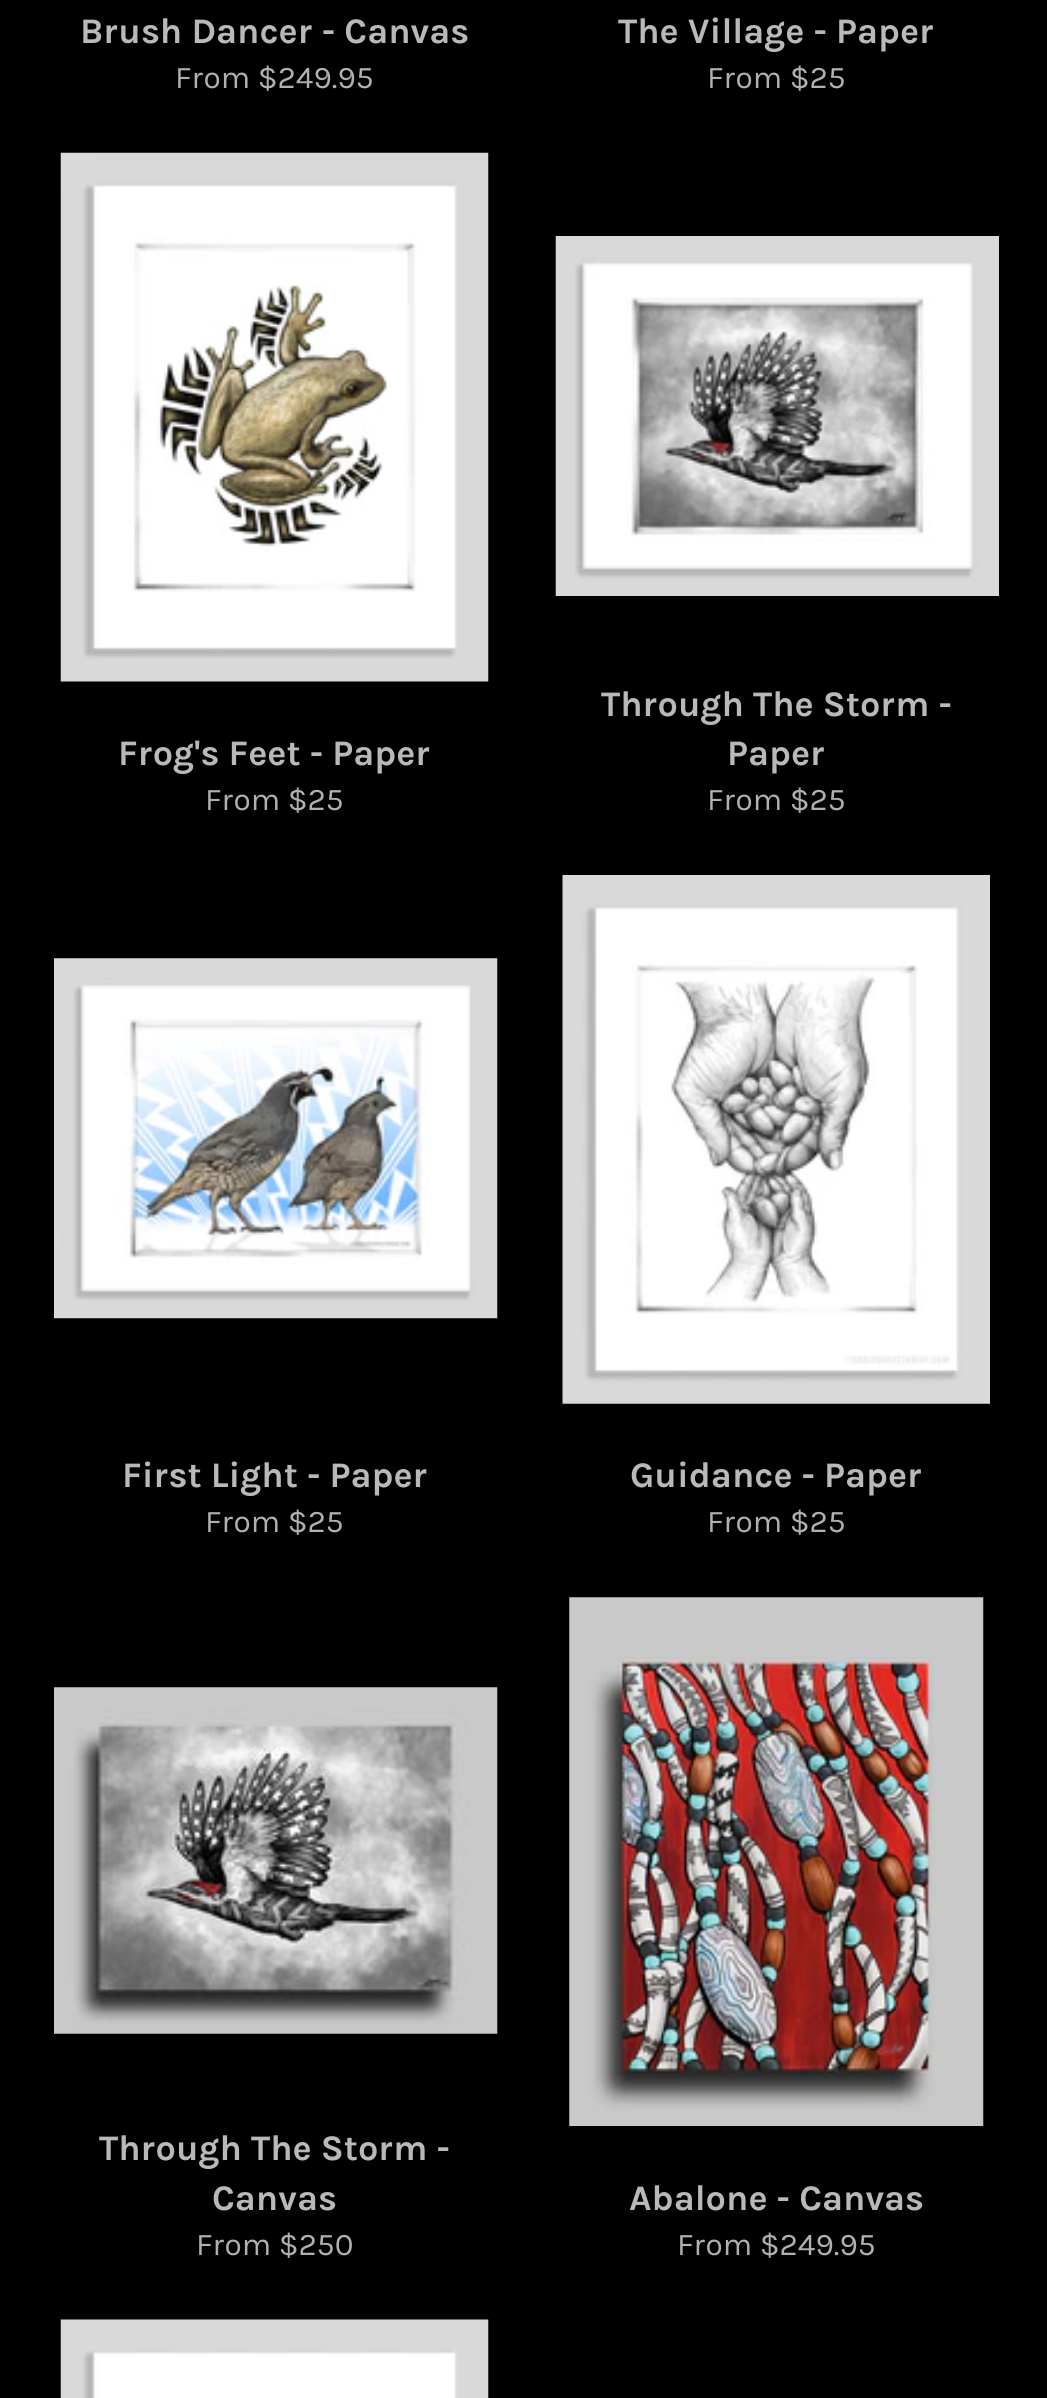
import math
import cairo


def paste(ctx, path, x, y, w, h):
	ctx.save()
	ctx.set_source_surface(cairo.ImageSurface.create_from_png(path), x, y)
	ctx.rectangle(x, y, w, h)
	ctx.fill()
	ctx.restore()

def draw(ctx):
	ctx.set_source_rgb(0, 0, 0)
	ctx.paint()
	ctx.select_font_face('Karla', cairo.FONT_SLANT_NORMAL, cairo.FONT_WEIGHT_BOLD)
	ctx.set_font_size(36)
	ctx.set_source_rgb(0.725, 0.725, 0.725)
	ctx.move_to(80, 43)
	ctx.show_text('Brush Dancer - Canvas')
	ctx.select_font_face('Karla')
	ctx.set_font_size(31.5)
	ctx.set_source_rgb(0.69, 0.69, 0.69)
	ctx.move_to(175, 88)
	ctx.show_text('From $249.95')
	ctx.select_font_face('Karla', cairo.FONT_SLANT_NORMAL, cairo.FONT_WEIGHT_BOLD)
	ctx.set_font_size(36)
	ctx.set_source_rgb(0.725, 0.725, 0.725)
	ctx.move_to(618, 43)
	ctx.show_text('The Village - Paper')
	ctx.select_font_face('Karla')
	ctx.set_font_size(31.5)
	ctx.set_source_rgb(0.69, 0.69, 0.69)
	ctx.move_to(707, 88)
	ctx.show_text('From $25')
	paste(ctx, 'media/1.png', 60, 152, 429, 530)
	ctx.select_font_face('Karla', cairo.FONT_SLANT_NORMAL, cairo.FONT_WEIGHT_BOLD)
	ctx.set_font_size(36)
	ctx.set_source_rgb(0.725, 0.725, 0.725)
	ctx.move_to(118, 765)
	ctx.show_text('Frog\'s Feet - Paper')
	ctx.select_font_face('Karla')
	ctx.set_font_size(31.5)
	ctx.set_source_rgb(0.69, 0.69, 0.69)
	ctx.move_to(205, 810)
	ctx.show_text('From $25')
	paste(ctx, 'media/2.png', 555, 236, 444, 360)
	ctx.select_font_face('Karla', cairo.FONT_SLANT_NORMAL, cairo.FONT_WEIGHT_BOLD)
	ctx.set_font_size(36)
	ctx.set_source_rgb(0.725, 0.725, 0.725)
	ctx.move_to(601, 716)
	ctx.show_text('Through The Storm -')
	ctx.move_to(727, 765)
	ctx.show_text('Paper')
	ctx.select_font_face('Karla')
	ctx.set_font_size(31.5)
	ctx.set_source_rgb(0.69, 0.69, 0.69)
	ctx.move_to(707, 810)
	ctx.show_text('From $25')
	paste(ctx, 'media/3.png', 54, 958, 444, 361)
	ctx.select_font_face('Karla', cairo.FONT_SLANT_NORMAL, cairo.FONT_WEIGHT_BOLD)
	ctx.set_font_size(36)
	ctx.set_source_rgb(0.725, 0.725, 0.725)
	ctx.move_to(122, 1487)
	ctx.show_text('First Light - Paper')
	ctx.select_font_face('Karla')
	ctx.set_font_size(31.5)
	ctx.set_source_rgb(0.69, 0.69, 0.69)
	ctx.move_to(205, 1532)
	ctx.show_text('From $25')
	paste(ctx, 'media/4.png', 562, 875, 428, 529)
	ctx.select_font_face('Karla', cairo.FONT_SLANT_NORMAL, cairo.FONT_WEIGHT_BOLD)
	ctx.set_font_size(36)
	ctx.set_source_rgb(0.725, 0.725, 0.725)
	ctx.move_to(630, 1487)
	ctx.show_text('Guidance - Paper')
	ctx.select_font_face('Karla')
	ctx.set_font_size(31.5)
	ctx.set_source_rgb(0.69, 0.69, 0.69)
	ctx.move_to(707, 1532)
	ctx.show_text('From $25')
	paste(ctx, 'media/5.png', 54, 1687, 444, 347)
	ctx.select_font_face('Karla', cairo.FONT_SLANT_NORMAL, cairo.FONT_WEIGHT_BOLD)
	ctx.set_font_size(36)
	ctx.set_source_rgb(0.725, 0.725, 0.725)
	ctx.move_to(99, 2160)
	ctx.show_text('Through The Storm -')
	ctx.move_to(212, 2210)
	ctx.show_text('Canvas')
	ctx.select_font_face('Karla')
	ctx.set_font_size(31.5)
	ctx.set_source_rgb(0.69, 0.69, 0.69)
	ctx.move_to(196, 2255)
	ctx.show_text('From $250')
	paste(ctx, 'media/6.png', 569, 1597, 415, 529)
	ctx.select_font_face('Karla', cairo.FONT_SLANT_NORMAL, cairo.FONT_WEIGHT_BOLD)
	ctx.set_font_size(36)
	ctx.set_source_rgb(0.725, 0.725, 0.725)
	ctx.move_to(629, 2210)
	ctx.show_text('Abalone - Canvas')
	ctx.select_font_face('Karla')
	ctx.set_font_size(31.5)
	ctx.set_source_rgb(0.69, 0.69, 0.69)
	ctx.move_to(677, 2255)
	ctx.show_text('From $249.95')
	paste(ctx, 'media/7.png', 60, 2319, 429, 79)


surface = cairo.ImageSurface(cairo.FORMAT_RGB24, 1047, 2398)
ctx = cairo.Context(surface)
options = cairo.FontOptions()
options.set_hint_metrics(cairo.HINT_METRICS_OFF)
options.set_hint_style(cairo.HINT_STYLE_NONE)
ctx.set_font_options(options)
ctx.set_miter_limit(4)
draw(ctx)
surface.write_to_png('image.png')
